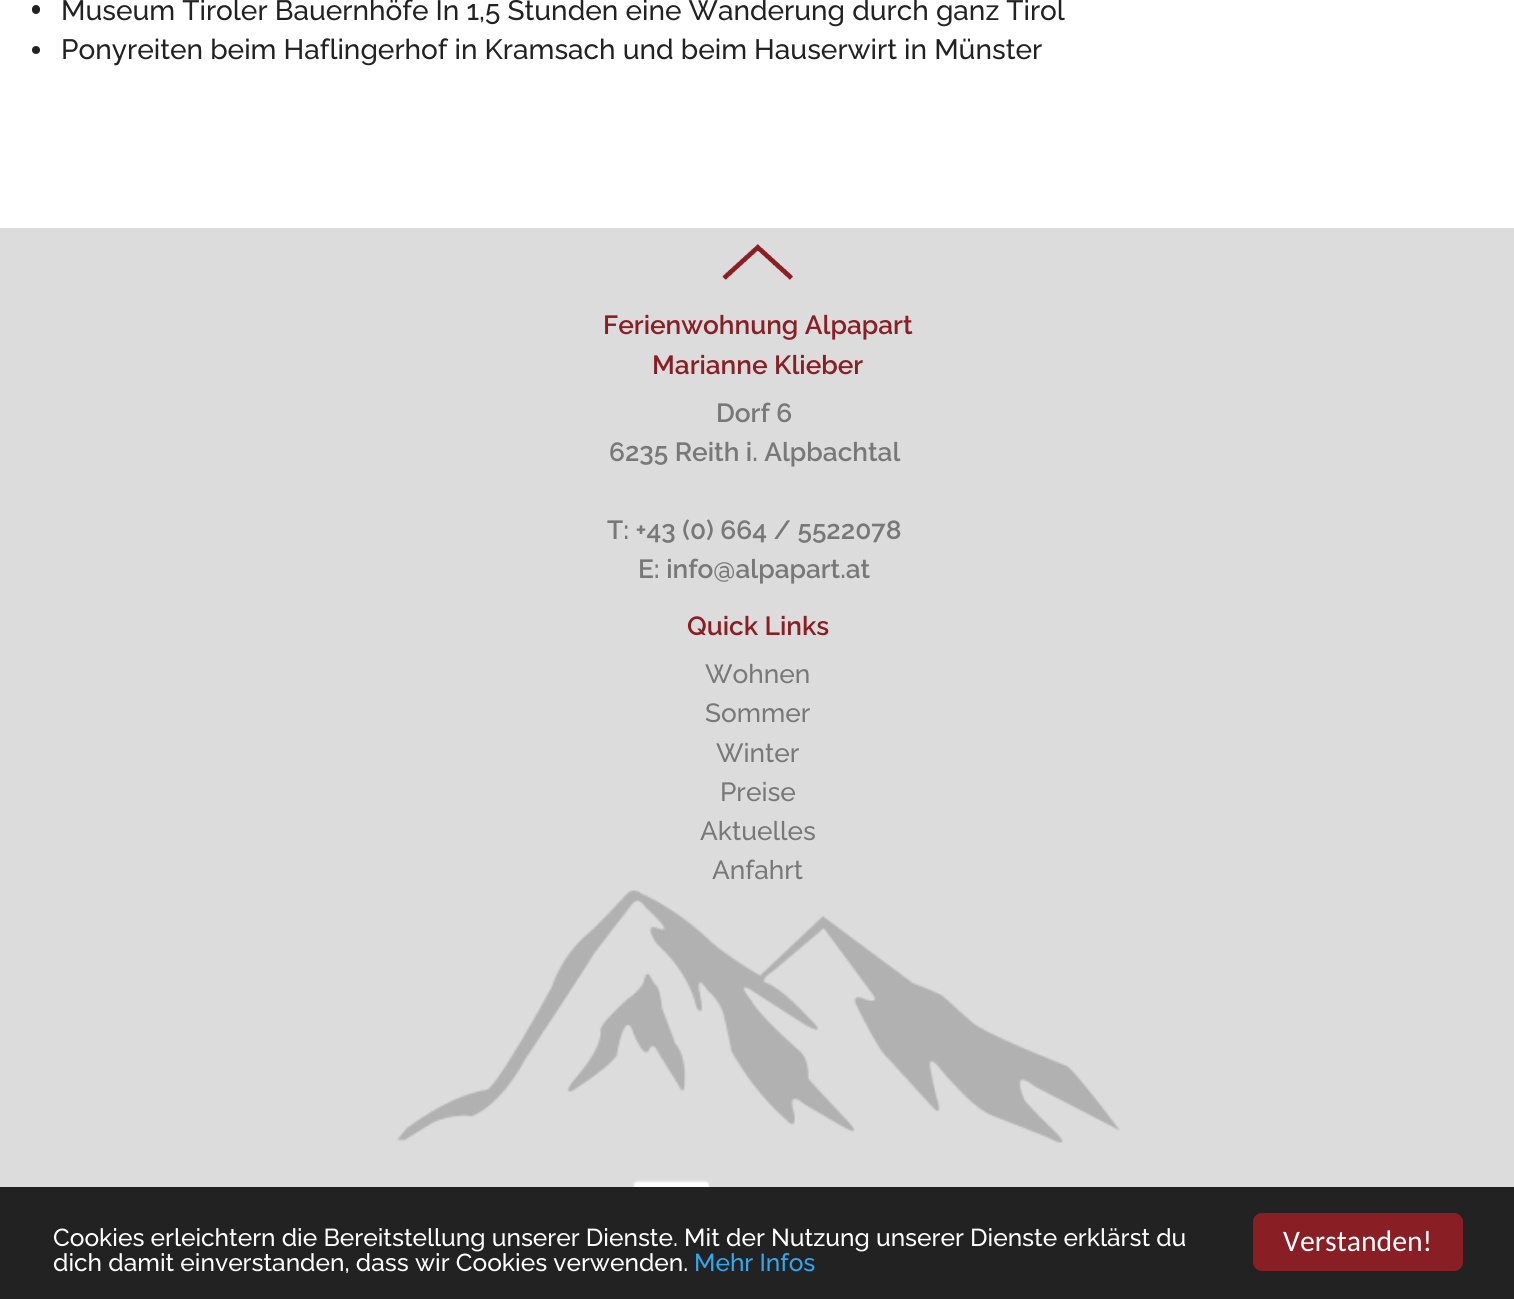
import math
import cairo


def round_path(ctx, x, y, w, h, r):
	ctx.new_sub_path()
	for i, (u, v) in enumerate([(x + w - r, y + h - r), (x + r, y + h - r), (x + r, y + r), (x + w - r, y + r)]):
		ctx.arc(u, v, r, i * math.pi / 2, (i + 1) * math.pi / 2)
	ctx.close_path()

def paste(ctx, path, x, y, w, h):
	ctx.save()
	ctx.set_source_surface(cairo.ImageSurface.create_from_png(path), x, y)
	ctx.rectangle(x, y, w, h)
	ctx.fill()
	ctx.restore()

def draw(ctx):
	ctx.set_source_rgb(1, 1, 1)
	ctx.paint()
	ctx.set_source_rgb(0.133, 0.133, 0.133)
	round_path(ctx, 32, 5, 8, 9, 4)
	ctx.fill()
	ctx.select_font_face('Raleway Thin')
	ctx.set_font_size(28)
	ctx.move_to(61, 20)
	ctx.show_text('Museum Tiroler Bauernhöfe In 1,5 Stunden eine Wanderung durch ganz Tirol')
	ctx.new_path()
	ctx.arc(36, 50, 4, 0, 2 * math.pi)
	ctx.fill()
	ctx.move_to(61, 59)
	ctx.show_text('Ponyreiten beim Haflingerhof in Kramsach und beim Hauserwirt in Münster')
	ctx.set_source_rgb(0.863, 0.863, 0.863)
	ctx.rectangle(0, 228, 1514, 959)
	ctx.fill()
	paste(ctx, 'media/1.png', 722, 244, 71, 36)
	ctx.select_font_face('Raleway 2 Thin')
	ctx.set_font_size(26.25)
	ctx.set_source_rgb(0.537, 0.118, 0.141)
	ctx.move_to(603, 334)
	ctx.show_text('Ferienwohnung Alpapart')
	ctx.move_to(652, 374)
	ctx.show_text('Marianne Klieber')
	ctx.set_source_rgb(0.467, 0.471, 0.467)
	for x, y, s in [
		(716, 422, 'Dorf 6'),
		(609, 461, '6235 Reith i. Alpbachtal'),
		(607, 539, 'T: +43 (0) 664 / 5522078'),
		(638, 578, 'E: info@alpapart.at'),
	]:
		ctx.move_to(x, y)
		ctx.show_text(s)
	ctx.set_source_rgb(0.537, 0.118, 0.141)
	ctx.move_to(687, 635)
	ctx.show_text('Quick Links')
	ctx.select_font_face('Raleway Thin')
	ctx.set_source_rgb(0.467, 0.471, 0.467)
	for x, y, s in [
		(705, 683, 'Wohnen'),
		(705, 722, 'Sommer'),
		(716, 762, 'Winter'),
		(720, 801, 'Preise'),
		(700, 840, 'Aktuelles'),
		(712, 879, 'Anfahrt'),
	]:
		ctx.move_to(x, y)
		ctx.show_text(s)
	paste(ctx, 'media/2.png', 397, 890, 723, 253)
	paste(ctx, 'media/3.png', 633, 1180, 77, 7)
	ctx.set_source_rgb(0.133, 0.133, 0.133)
	ctx.rectangle(0, 1187, 1514, 112)
	ctx.fill()
	ctx.set_font_size(24.5)
	ctx.set_source_rgb(1, 1, 1)
	ctx.move_to(53, 1246)
	ctx.show_text('Cookies erleichtern die Bereitstellung unserer Dienste. Mit der Nutzung unserer Dienste erklärst du')
	ctx.move_to(53, 1271)
	ctx.show_text('dich damit einverstanden, dass wir Cookies verwenden.')
	ctx.set_source_rgb(0.192, 0.659, 0.941)
	ctx.move_to(694, 1271)
	ctx.show_text('Mehr Infos')
	ctx.set_source_rgb(0.537, 0.118, 0.141)
	round_path(ctx, 1253, 1213, 210, 58, 9)
	ctx.fill()
	ctx.select_font_face('Carlito')
	ctx.set_font_size(29.75)
	ctx.set_source_rgb(1, 1, 1)
	ctx.move_to(1283, 1251)
	ctx.show_text('Verstanden!')


surface = cairo.ImageSurface(cairo.FORMAT_RGB24, 1514, 1299)
ctx = cairo.Context(surface)
options = cairo.FontOptions()
options.set_hint_metrics(cairo.HINT_METRICS_OFF)
options.set_hint_style(cairo.HINT_STYLE_NONE)
ctx.set_font_options(options)
ctx.set_miter_limit(4)
draw(ctx)
surface.write_to_png('image.png')
